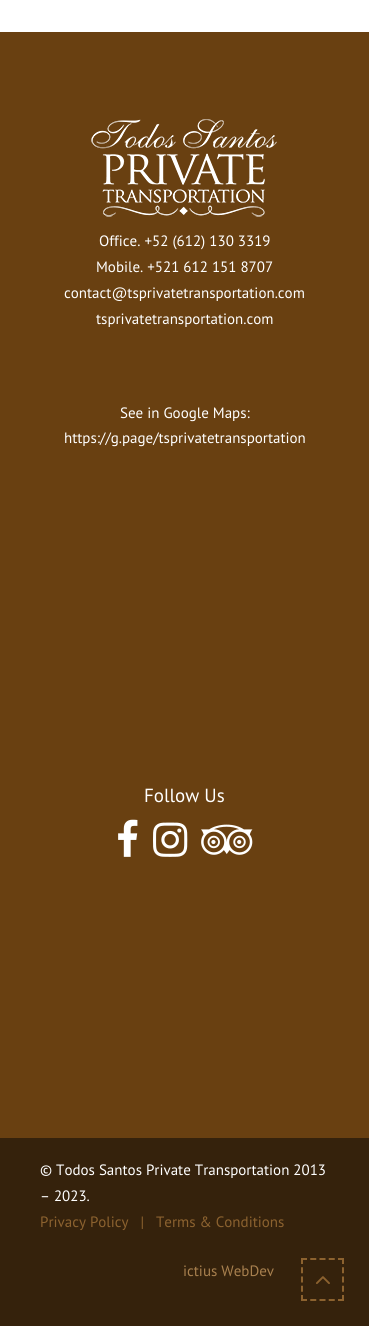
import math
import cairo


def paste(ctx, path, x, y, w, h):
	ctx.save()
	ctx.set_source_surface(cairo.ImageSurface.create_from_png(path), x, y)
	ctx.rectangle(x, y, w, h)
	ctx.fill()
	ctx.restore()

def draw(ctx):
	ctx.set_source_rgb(1, 1, 1)
	ctx.paint()
	ctx.set_source_rgb(0.412, 0.251, 0.067)
	ctx.rectangle(0, 32, 369, 1106)
	ctx.fill()
	paste(ctx, 'media/1.png', 91, 119, 186, 98)
	ctx.select_font_face('PT Sans')
	ctx.set_font_size(15)
	ctx.set_source_rgb(1, 1, 1)
	for x, y, s in [
		(99, 246, 'Office. +52 (612) 130 3319'),
		(96, 272, 'Mobile. +521 612 151 8707'),
		(64, 298, 'contact@tsprivatetransportation.com'),
		(96, 324, 'tsprivatetransportation.com'),
		(120, 418, 'See in Google Maps:'),
		(64, 443, 'https://g.page/tsprivatetransportation'),
	]:
		ctx.move_to(x, y)
		ctx.show_text(s)
	ctx.set_font_size(19)
	ctx.move_to(144, 802)
	ctx.show_text('Follow Us')
	paste(ctx, 'media/2.png', 118, 819, 20, 38)
	paste(ctx, 'media/3.png', 153, 822, 35, 35)
	paste(ctx, 'media/4.png', 201, 824, 52, 31)
	ctx.set_source_rgb(0.208, 0.133, 0.047)
	ctx.rectangle(0, 1138, 369, 188)
	ctx.fill()
	ctx.set_font_size(15)
	ctx.set_source_rgb(1, 1, 1)
	ctx.move_to(40, 1175)
	ctx.show_text('© Todos Santos Private Transportation 2013')
	ctx.move_to(40, 1201)
	ctx.show_text('– 2023.')
	ctx.set_source_rgb(0.549, 0.384, 0.184)
	ctx.move_to(40, 1227)
	ctx.show_text('Privacy Policy   |')
	ctx.move_to(156, 1227)
	ctx.show_text('Terms & Conditions')
	ctx.set_source_rgb(0.659, 0.502, 0.306)
	ctx.move_to(183, 1276)
	ctx.show_text('ictius WebDev')
	ctx.new_path()
	ctx.move_to(301, 1259)
	ctx.line_to(344, 1259)
	ctx.move_to(343, 1258)
	ctx.line_to(343, 1301)
	ctx.move_to(301, 1300)
	ctx.line_to(344, 1300)
	ctx.move_to(302, 1258)
	ctx.line_to(302, 1301)
	ctx.set_source_rgb(0.549, 0.384, 0.184)
	ctx.set_dash([6, 3.25])
	ctx.stroke()
	paste(ctx, 'media/5.png', 316, 1276, 14, 8)


surface = cairo.ImageSurface(cairo.FORMAT_RGB24, 369, 1326)
ctx = cairo.Context(surface)
options = cairo.FontOptions()
options.set_hint_metrics(cairo.HINT_METRICS_OFF)
options.set_hint_style(cairo.HINT_STYLE_NONE)
ctx.set_font_options(options)
ctx.set_miter_limit(4)
draw(ctx)
surface.write_to_png('image.png')
